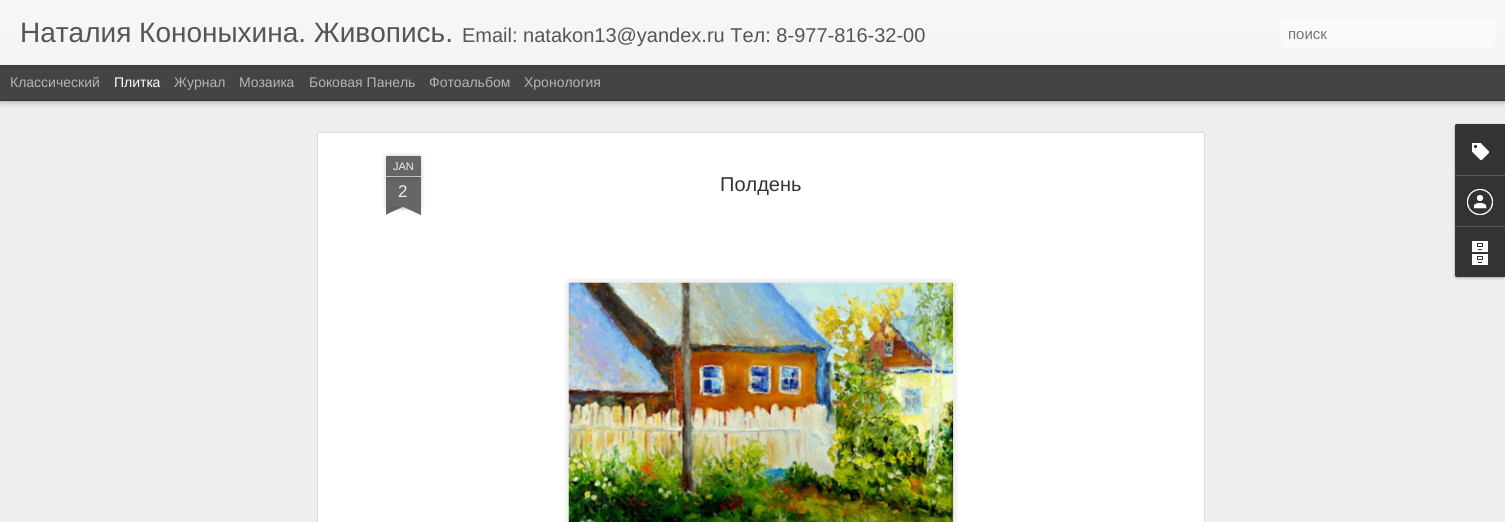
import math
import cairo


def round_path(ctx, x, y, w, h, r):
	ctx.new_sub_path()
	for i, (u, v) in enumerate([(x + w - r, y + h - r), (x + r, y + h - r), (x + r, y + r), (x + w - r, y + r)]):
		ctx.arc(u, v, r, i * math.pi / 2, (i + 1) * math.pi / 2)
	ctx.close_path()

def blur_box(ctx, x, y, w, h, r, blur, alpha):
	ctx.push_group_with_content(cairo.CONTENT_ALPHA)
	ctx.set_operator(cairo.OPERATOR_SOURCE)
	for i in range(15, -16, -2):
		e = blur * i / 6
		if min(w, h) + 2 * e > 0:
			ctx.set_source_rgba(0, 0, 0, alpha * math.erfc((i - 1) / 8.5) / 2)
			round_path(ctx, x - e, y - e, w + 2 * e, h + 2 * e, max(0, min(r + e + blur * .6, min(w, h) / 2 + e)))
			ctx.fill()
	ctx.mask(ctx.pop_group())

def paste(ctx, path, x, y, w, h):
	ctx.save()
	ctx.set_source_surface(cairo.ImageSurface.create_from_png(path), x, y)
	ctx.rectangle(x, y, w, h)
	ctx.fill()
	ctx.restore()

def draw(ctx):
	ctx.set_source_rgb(0.267, 0.267, 0.267)
	ctx.paint()
	ctx.set_source_rgb(0.933, 0.933, 0.933)
	ctx.rectangle(0, 101, 1505, 421)
	ctx.fill()
	ctx.set_source_rgb(0, 0, 0)
	blur_box(ctx, 0, 65, 1505, 35, 0, 4, 0.5)
	ctx.set_source_rgb(0.267, 0.267, 0.267)
	ctx.rectangle(0, 65, 1505, 35)
	ctx.fill()
	ctx.set_source_rgb(0, 0, 0)
	blur_box(ctx, 0, 0, 1505, 65, 0, 2.5, 0.3)
	gradient = cairo.LinearGradient(0, 0, 0, 65)
	gradient.add_color_stop_rgba(0, 0.969, 0.969, 0.969, 1)
	gradient.add_color_stop_rgba(1, 0.957, 0.957, 0.957, 1)
	ctx.set_source(gradient)
	ctx.rectangle(0, 0, 1505, 65)
	ctx.fill()
	ctx.select_font_face('Liberation Sans')
	ctx.set_font_size(28)
	ctx.set_source_rgb(0.333, 0.333, 0.333)
	ctx.move_to(20, 42)
	ctx.show_text('Наталия Кононыхина. Живопись.')
	ctx.set_font_size(20)
	ctx.move_to(462, 42)
	ctx.show_text('Email: natakon13@yandex.ru Тел: 8-977-816-32-00')
	ctx.set_source_rgb(0.98, 0.98, 0.98)
	round_path(ctx, 1281, 18, 214, 30, 3)
	ctx.fill()
	ctx.set_font_size(15)
	ctx.set_source_rgb(0.459, 0.459, 0.459)
	ctx.move_to(1288, 39)
	ctx.show_text('поиск')
	ctx.set_font_size(14)
	ctx.set_source_rgb(0.706, 0.706, 0.706)
	ctx.move_to(10, 87)
	ctx.show_text('Классический')
	ctx.set_source_rgb(1, 1, 1)
	ctx.move_to(114, 87)
	ctx.show_text('Плитка')
	ctx.set_source_rgb(0.706, 0.706, 0.706)
	for x, y, s in [
		(174, 87, 'Журнал'),
		(239, 87, 'Мозаика'),
		(309, 87, 'Боковая Панель'),
		(429, 87, 'Фотоальбом'),
		(524, 87, 'Хронология'),
	]:
		ctx.move_to(x, y)
		ctx.show_text(s)
	ctx.set_source_rgb(1, 1, 1)
	ctx.rectangle(316, 131, 890, 391)
	ctx.fill()
	paste(ctx, 'media/1.png', 316, 131, 890, 391)
	ctx.set_source_rgb(0, 0, 0)
	blur_box(ctx, 386, 177, 35, 30, 0, 2.5, 0.2)
	ctx.set_source_rgb(0.4, 0.4, 0.4)
	ctx.rectangle(386, 177, 35, 30)
	ctx.fill()
	ctx.set_source_rgb(0, 0, 0)
	blur_box(ctx, 386, 156, 35, 21, 1, 2.5, 0.2)
	ctx.set_source_rgb(0.4, 0.4, 0.4)
	ctx.new_path()
	ctx.move_to(387, 156)
	ctx.line_to(420, 156)
	ctx.curve_to(420.5, 156, 421, 156.5, 421, 157)
	ctx.line_to(421, 177)
	ctx.line_to(386, 177)
	ctx.line_to(386, 157)
	ctx.curve_to(386, 156.5, 386.5, 156, 387, 156)
	ctx.close_path()
	ctx.fill()
	ctx.set_source_rgb(0.761, 0.761, 0.761)
	ctx.rectangle(386, 176, 35, 1)
	ctx.fill()
	ctx.set_font_size(11)
	ctx.set_source_rgb(0.933, 0.933, 0.933)
	ctx.move_to(393, 170)
	ctx.show_text('JAN')
	ctx.set_font_size(17)
	ctx.move_to(398, 197)
	ctx.show_text('2')
	ctx.save()
	ctx.rectangle(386, 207, 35, 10)
	ctx.clip()
	ctx.set_source_rgb(0, 0, 0)
	blur_box(ctx, 377, 197, 50, 10, 0, 2.5, 0.2)
	ctx.restore()
	ctx.save()
	ctx.rectangle(386, 207, 35, 10)
	ctx.clip()
	ctx.set_source_rgb(0.4, 0.4, 0.4)
	ctx.new_path()
	ctx.move_to(377, 208)
	ctx.line_to(422, 187)
	ctx.line_to(426, 196)
	ctx.line_to(381, 217)
	ctx.close_path()
	ctx.fill()
	ctx.restore()
	ctx.save()
	ctx.rectangle(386, 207, 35, 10)
	ctx.clip()
	ctx.set_source_rgb(0, 0, 0)
	blur_box(ctx, 380, 197, 50, 10, 0, 2.5, 0.2)
	ctx.restore()
	ctx.save()
	ctx.rectangle(386, 207, 35, 10)
	ctx.clip()
	ctx.set_source_rgb(0.4, 0.4, 0.4)
	ctx.new_path()
	ctx.move_to(384, 187)
	ctx.line_to(429, 208)
	ctx.line_to(425, 217)
	ctx.line_to(380, 196)
	ctx.close_path()
	ctx.fill()
	ctx.restore()
	ctx.set_font_size(20)
	ctx.set_source_rgb(0.2, 0.2, 0.2)
	ctx.move_to(720, 191)
	ctx.show_text('Полдень')
	paste(ctx, 'media/2.png', 564, 278, 394, 244)
	paste(ctx, 'media/3.png', 568, 282, 386, 240)
	ctx.set_source_rgb(0, 0, 0)
	blur_box(ctx, 1455, 125, 50, 153, 2, 1.5, 0.3)
	ctx.set_source_rgb(0.2, 0.2, 0.2)
	ctx.new_path()
	ctx.move_to(1457, 124)
	ctx.line_to(1505, 124)
	ctx.line_to(1505, 277)
	ctx.line_to(1457, 277)
	ctx.curve_to(1456, 277, 1455, 276, 1455, 275)
	ctx.line_to(1455, 126)
	ctx.curve_to(1455, 125, 1456, 124, 1457, 124)
	ctx.close_path()
	ctx.fill()
	ctx.new_path()
	ctx.move_to(1457, 124)
	ctx.line_to(1505, 124)
	ctx.line_to(1505, 175)
	ctx.line_to(1455, 175)
	ctx.line_to(1455, 126)
	ctx.curve_to(1455, 125, 1456, 124, 1457, 124)
	ctx.close_path()
	ctx.fill()
	paste(ctx, 'media/4.png', 1472, 143, 17, 17)
	ctx.set_source_rgb(0.345, 0.345, 0.345)
	ctx.rectangle(1455, 175, 50, 1)
	ctx.fill()
	paste(ctx, 'media/5.png', 1467, 189, 26, 26)
	ctx.set_source_rgb(0.2, 0.2, 0.2)
	ctx.new_path()
	ctx.move_to(1455, 226)
	ctx.line_to(1505, 226)
	ctx.line_to(1505, 277)
	ctx.line_to(1457, 277)
	ctx.curve_to(1456, 277, 1455, 276, 1455, 275)
	ctx.close_path()
	ctx.fill()
	ctx.set_source_rgb(0.345, 0.345, 0.345)
	ctx.rectangle(1455, 226, 50, 1)
	ctx.fill()
	paste(ctx, 'media/6.png', 1472, 241, 16, 24)


surface = cairo.ImageSurface(cairo.FORMAT_RGB24, 1505, 522)
ctx = cairo.Context(surface)
options = cairo.FontOptions()
options.set_hint_metrics(cairo.HINT_METRICS_OFF)
options.set_hint_style(cairo.HINT_STYLE_NONE)
ctx.set_font_options(options)
ctx.set_miter_limit(4)
draw(ctx)
surface.write_to_png('image.png')
